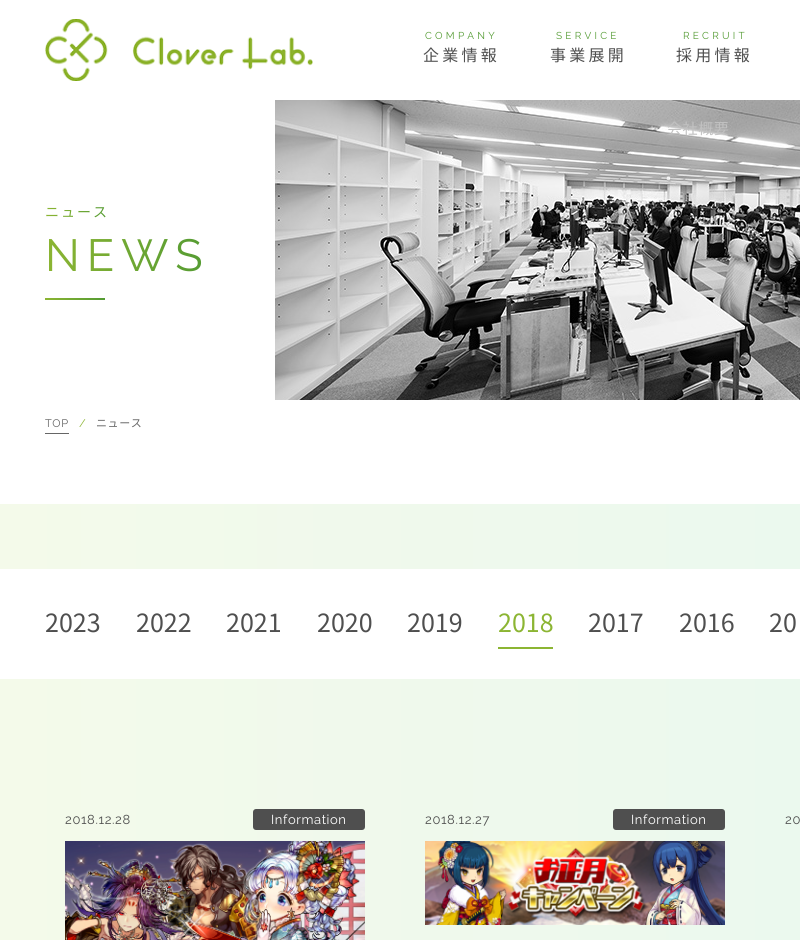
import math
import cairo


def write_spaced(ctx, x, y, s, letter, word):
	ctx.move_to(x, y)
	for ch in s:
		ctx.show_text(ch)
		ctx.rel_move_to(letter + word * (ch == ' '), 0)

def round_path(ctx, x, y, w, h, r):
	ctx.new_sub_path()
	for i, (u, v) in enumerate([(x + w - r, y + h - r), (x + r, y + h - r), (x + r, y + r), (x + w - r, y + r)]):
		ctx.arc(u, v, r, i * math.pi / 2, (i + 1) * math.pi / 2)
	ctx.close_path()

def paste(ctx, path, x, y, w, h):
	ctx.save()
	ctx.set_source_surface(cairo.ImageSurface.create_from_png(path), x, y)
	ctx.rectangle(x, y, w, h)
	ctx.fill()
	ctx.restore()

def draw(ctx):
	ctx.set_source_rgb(1, 1, 1)
	ctx.paint()
	paste(ctx, 'media/1.png', 45, 19, 268, 62)
	ctx.select_font_face('Raleway')
	ctx.set_font_size(10)
	ctx.set_source_rgb(0.329, 0.608, 0.2)
	write_spaced(ctx, 425, 39, 'COMPANY', 3.25, 0)
	ctx.select_font_face('Noto Sans JP')
	ctx.set_font_size(16)
	ctx.set_source_rgb(0.31, 0.31, 0.31)
	write_spaced(ctx, 423, 61, '企業情報', 3.25, 0)
	paste(ctx, 'media/2.png', 275, 100, 525, 300)
	ctx.set_font_size(15)
	ctx.set_source_rgb(0.757, 0.757, 0.757)
	write_spaced(ctx, 667, 134, '会社概要', 0.6, 0)
	ctx.select_font_face('Raleway')
	ctx.set_font_size(10)
	ctx.set_source_rgb(0.329, 0.608, 0.2)
	write_spaced(ctx, 556, 39, 'SERVICE', 3.25, 0)
	ctx.select_font_face('Noto Sans JP')
	ctx.set_font_size(16)
	ctx.set_source_rgb(0.31, 0.31, 0.31)
	write_spaced(ctx, 550, 61, '事業展開', 3.25, 0)
	ctx.select_font_face('Raleway')
	ctx.set_font_size(10)
	ctx.set_source_rgb(0.329, 0.608, 0.2)
	write_spaced(ctx, 683, 39, 'RECRUIT', 3.25, 0)
	ctx.select_font_face('Noto Sans JP')
	ctx.set_font_size(16)
	ctx.set_source_rgb(0.31, 0.31, 0.31)
	write_spaced(ctx, 676, 61, '採用情報', 3.25, 0)
	ctx.set_font_size(14)
	gradient = cairo.LinearGradient(45, 212, 109, 212)
	gradient.add_color_stop_rgba(0, 0.549, 0.71, 0.2, 1)
	gradient.add_color_stop_rgba(1, 0.329, 0.608, 0.2, 1)
	ctx.set_source(gradient)
	write_spaced(ctx, 45, 217, 'ニュース', 2, 0)
	ctx.select_font_face('Raleway')
	ctx.set_font_size(45)
	gradient = cairo.LinearGradient(45, 256, 209, 256)
	gradient.add_color_stop_rgba(0, 0.549, 0.71, 0.2, 1)
	gradient.add_color_stop_rgba(1, 0.329, 0.608, 0.2, 1)
	ctx.set_source(gradient)
	write_spaced(ctx, 45, 271, 'NEWS', 7, 0)
	gradient = cairo.LinearGradient(45, 299, 105, 299)
	gradient.add_color_stop_rgba(0, 0.549, 0.71, 0.2, 1)
	gradient.add_color_stop_rgba(1, 0.329, 0.608, 0.2, 1)
	ctx.set_source(gradient)
	ctx.rectangle(45, 298, 60, 2)
	ctx.fill()
	ctx.set_source_rgb(0.4, 0.4, 0.4)
	ctx.rectangle(45, 433, 24, 1)
	ctx.fill()
	ctx.set_font_size(11)
	write_spaced(ctx, 45, 427, 'TOP', 0.6, 0)
	ctx.set_source_rgb(0.549, 0.71, 0.2)
	write_spaced(ctx, 79, 427, '/', 0.6, 0)
	ctx.select_font_face('Noto Sans JP')
	ctx.set_source_rgb(0.4, 0.4, 0.4)
	write_spaced(ctx, 96, 427, 'ニュース', 0.6, 0)
	gradient = cairo.LinearGradient(0, 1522, 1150, 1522)
	gradient.add_color_stop_rgba(0, 0.957, 0.98, 0.918, 1)
	gradient.add_color_stop_rgba(1, 0.906, 0.973, 0.941, 1)
	ctx.set_source(gradient)
	ctx.rectangle(0, 504, 800, 436)
	ctx.fill()
	ctx.set_source_rgb(1, 1, 1)
	ctx.rectangle(0, 569, 800, 110)
	ctx.fill()
	ctx.set_font_size(25)
	ctx.set_source_rgb(0.31, 0.31, 0.31)
	for x, y, s in [
		(45, 632, '2023'),
		(136, 632, '2022'),
		(226, 632, '2021'),
		(317, 632, '2020'),
		(407, 632, '2019'),
	]:
		ctx.move_to(x, y)
		ctx.show_text(s)
	ctx.set_source_rgb(0.549, 0.71, 0.2)
	ctx.move_to(498, 632)
	ctx.show_text('2018')
	ctx.rectangle(498, 647, 55, 2)
	ctx.fill()
	ctx.set_source_rgb(0.31, 0.31, 0.31)
	for x, y, s in [
		(588, 632, '2017'),
		(679, 632, '2016'),
		(769, 632, '20'),
	]:
		ctx.move_to(x, y)
		ctx.show_text(s)
	ctx.select_font_face('Raleway')
	ctx.set_font_size(13)
	write_spaced(ctx, 65, 824, '2018.12.28', 0.6, 0)
	round_path(ctx, 253, 809, 112, 21, 3)
	ctx.fill()
	ctx.set_source_rgb(1, 1, 1)
	write_spaced(ctx, 271, 824, 'Information', 0.6, 0)
	paste(ctx, 'media/3.png', 65, 841, 300, 99)
	ctx.set_source_rgb(0.31, 0.31, 0.31)
	write_spaced(ctx, 425, 824, '2018.12.27', 0.6, 0)
	round_path(ctx, 613, 809, 112, 21, 3)
	ctx.fill()
	ctx.set_source_rgb(1, 1, 1)
	write_spaced(ctx, 631, 824, 'Information', 0.6, 0)
	paste(ctx, 'media/4.png', 425, 841, 300, 84)
	ctx.set_source_rgb(0.31, 0.31, 0.31)
	write_spaced(ctx, 785, 824, '20', 0.6, 0)


surface = cairo.ImageSurface(cairo.FORMAT_RGB24, 800, 940)
ctx = cairo.Context(surface)
options = cairo.FontOptions()
options.set_hint_metrics(cairo.HINT_METRICS_OFF)
options.set_hint_style(cairo.HINT_STYLE_NONE)
ctx.set_font_options(options)
ctx.set_miter_limit(4)
draw(ctx)
surface.write_to_png('image.png')
